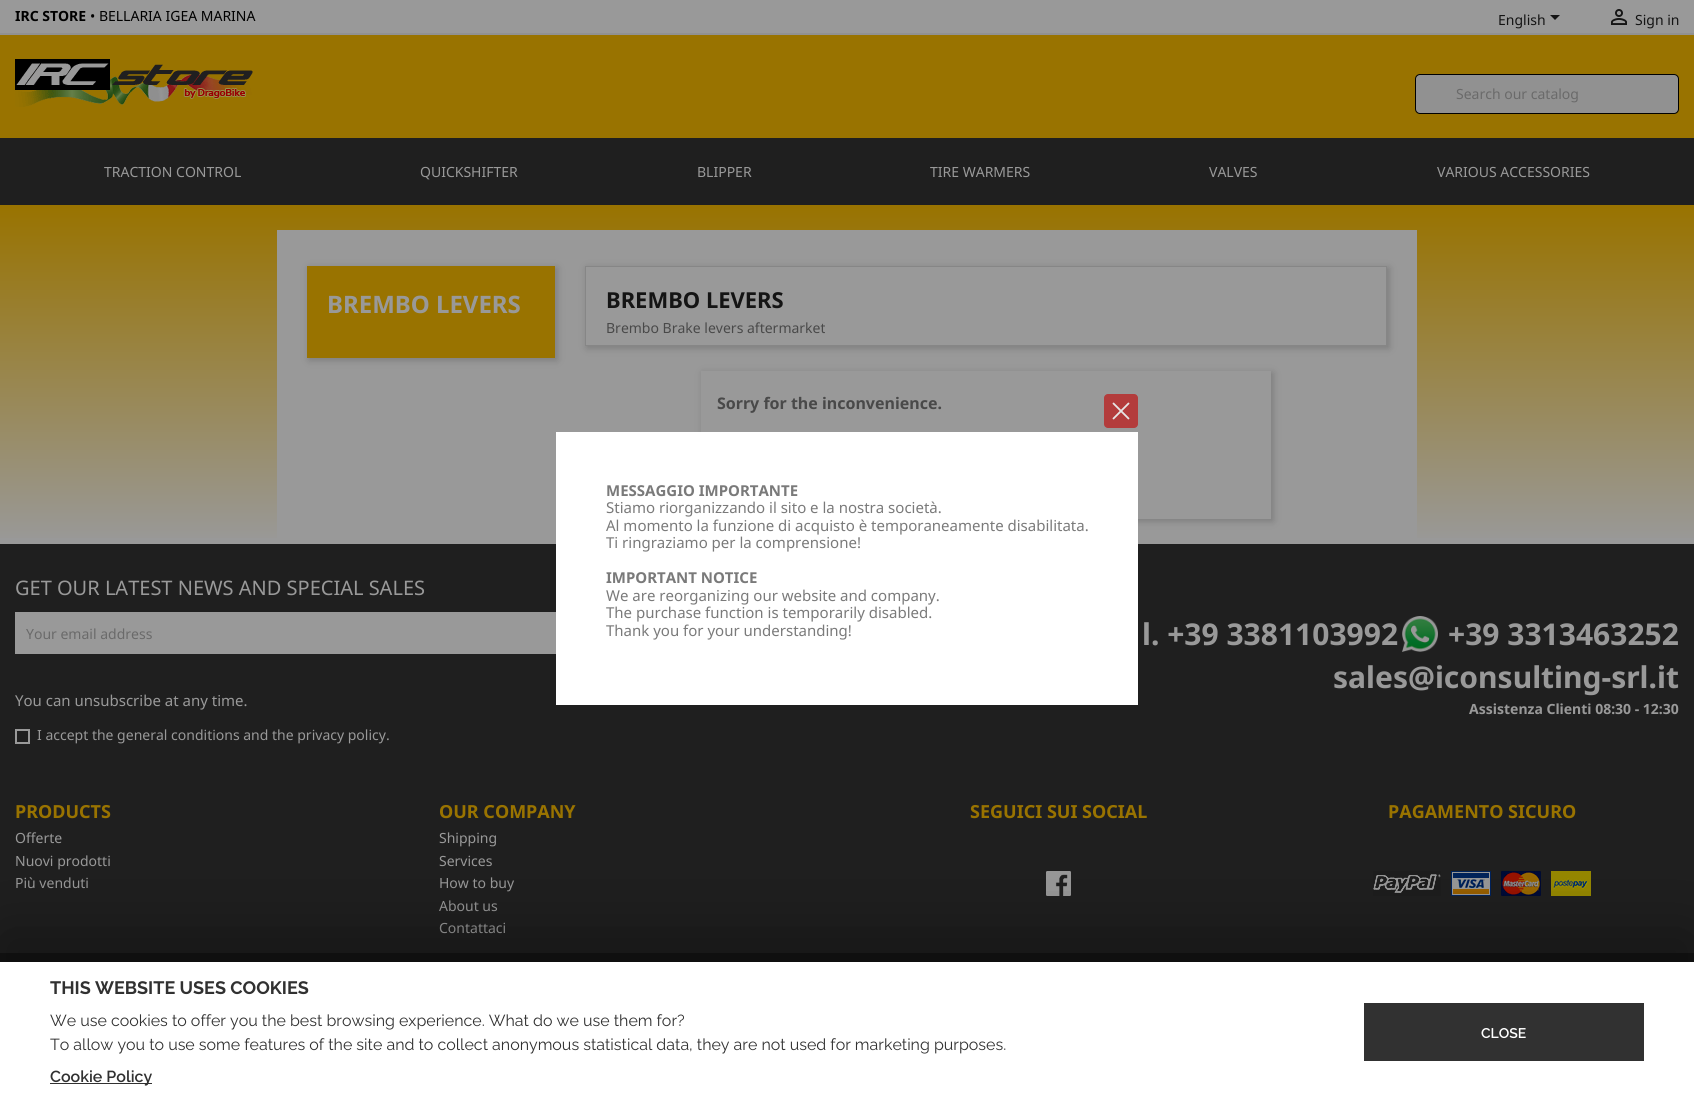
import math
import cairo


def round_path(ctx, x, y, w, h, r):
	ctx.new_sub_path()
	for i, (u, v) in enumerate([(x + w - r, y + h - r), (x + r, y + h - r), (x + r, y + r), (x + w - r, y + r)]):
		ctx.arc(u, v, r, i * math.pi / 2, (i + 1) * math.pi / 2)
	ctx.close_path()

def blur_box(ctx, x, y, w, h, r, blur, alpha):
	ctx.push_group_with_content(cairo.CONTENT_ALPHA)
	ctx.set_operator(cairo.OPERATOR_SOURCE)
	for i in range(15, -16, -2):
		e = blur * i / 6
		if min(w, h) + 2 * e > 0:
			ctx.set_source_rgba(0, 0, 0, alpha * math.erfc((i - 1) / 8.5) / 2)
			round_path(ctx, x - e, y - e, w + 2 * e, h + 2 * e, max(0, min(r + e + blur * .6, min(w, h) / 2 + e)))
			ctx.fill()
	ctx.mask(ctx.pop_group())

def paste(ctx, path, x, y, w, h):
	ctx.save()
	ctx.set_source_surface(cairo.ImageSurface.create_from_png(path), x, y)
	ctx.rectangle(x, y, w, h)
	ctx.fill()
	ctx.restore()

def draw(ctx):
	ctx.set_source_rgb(0.6, 0.6, 0.6)
	ctx.paint()
	ctx.set_source_rgb(0.569, 0.569, 0.569)
	ctx.rectangle(0, 33, 1694, 2)
	ctx.fill()
	ctx.select_font_face('Noto Sans', cairo.FONT_SLANT_NORMAL, cairo.FONT_WEIGHT_BOLD)
	ctx.set_font_size(14)
	ctx.set_source_rgb(0, 0, 0)
	ctx.move_to(15, 21)
	ctx.show_text('IRC STORE')
	ctx.select_font_face('Noto Sans')
	ctx.move_to(90, 21)
	ctx.show_text('• BELLARIA IGEA MARINA')
	ctx.set_source_rgb(0.082, 0.082, 0.082)
	ctx.move_to(1498, 25)
	ctx.show_text('English')
	ctx.new_path()
	ctx.move_to(1550, 15)
	ctx.line_to(1560, 15)
	ctx.line_to(1555, 20)
	ctx.close_path()
	ctx.fill()
	paste(ctx, 'media/1.png', 1611, 9, 16, 16)
	ctx.move_to(1635, 25)
	ctx.show_text('Sign in')
	ctx.set_source_rgb(0.6, 0.451, 0)
	ctx.rectangle(0, 35, 1694, 103)
	ctx.fill()
	paste(ctx, 'media/2.png', 15, 59, 238, 48)
	ctx.set_source_rgb(0.569, 0.569, 0.569)
	round_path(ctx, 1415.5, 74.5, 263, 39, 4.5)
	ctx.fill_preserve()
	ctx.set_source_rgb(0, 0, 0)
	ctx.set_line_width(1)
	ctx.stroke()
	ctx.set_source_rgb(0.416, 0.416, 0.416)
	ctx.move_to(1456, 99)
	ctx.show_text('Search our catalog')
	ctx.set_source_rgb(0.122, 0.122, 0.122)
	ctx.rectangle(0, 138, 1694, 67)
	ctx.fill()
	ctx.set_source_rgb(0.6, 0.6, 0.6)
	for x, y, s in [
		(104, 177, 'TRACTION CONTROL'),
		(420, 177, 'QUICKSHIFTER'),
		(697, 177, 'BLIPPER'),
		(930, 177, 'TIRE WARMERS'),
		(1209, 177, 'VALVES'),
		(1437, 177, 'VARIOUS ACCESSORIES'),
	]:
		ctx.move_to(x, y)
		ctx.show_text(s)
	gradient = cairo.LinearGradient(847, 205, 847, 544)
	gradient.add_color_stop_rgba(0, 0.6, 0.451, 0, 1)
	gradient.add_color_stop_rgba(1, 0.6, 0.6, 0.6, 1)
	ctx.set_source(gradient)
	ctx.rectangle(0, 205, 1694, 333)
	ctx.fill()
	ctx.set_source_rgb(0.6, 0.6, 0.6)
	ctx.rectangle(277, 230, 1140, 308)
	ctx.fill()
	ctx.set_source_rgb(0, 0, 0)
	blur_box(ctx, 309, 268, 248, 92, 0, 4, 0.2)
	ctx.set_source_rgb(0.6, 0.451, 0)
	ctx.rectangle(307, 266, 248, 92)
	ctx.fill()
	ctx.select_font_face('Noto Sans', cairo.FONT_SLANT_NORMAL, cairo.FONT_WEIGHT_BOLD)
	ctx.set_font_size(24)
	ctx.set_source_rgb(0.6, 0.6, 0.6)
	ctx.move_to(327, 313)
	ctx.show_text('BREMBO LEVERS')
	ctx.save()
	ctx.set_fill_rule(cairo.FILL_RULE_EVEN_ODD)
	ctx.new_path()
	ctx.move_to(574, 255)
	ctx.line_to(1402, 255)
	ctx.line_to(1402, 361)
	ctx.line_to(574, 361)
	ctx.close_path()
	ctx.move_to(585, 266)
	ctx.line_to(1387, 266)
	ctx.line_to(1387, 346)
	ctx.line_to(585, 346)
	ctx.close_path()
	ctx.clip()
	ctx.set_source_rgb(0, 0, 0)
	blur_box(ctx, 587, 268, 802, 80, 0, 4, 0.2)
	ctx.restore()
	ctx.rectangle(585.5, 266.5, 801, 79)
	ctx.set_source_rgb(0.525, 0.525, 0.525)
	ctx.stroke()
	ctx.set_font_size(22)
	ctx.set_source_rgb(0.082, 0.082, 0.082)
	ctx.move_to(606, 308)
	ctx.show_text('BREMBO LEVERS')
	ctx.select_font_face('Noto Sans')
	ctx.set_font_size(14)
	ctx.set_source_rgb(0.286, 0.286, 0.286)
	ctx.move_to(606, 333)
	ctx.show_text('Brembo Brake levers aftermarket')
	ctx.save()
	ctx.set_fill_rule(cairo.FILL_RULE_EVEN_ODD)
	ctx.new_path()
	ctx.move_to(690, 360)
	ctx.line_to(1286, 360)
	ctx.line_to(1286, 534)
	ctx.line_to(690, 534)
	ctx.close_path()
	ctx.move_to(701, 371)
	ctx.line_to(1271, 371)
	ctx.line_to(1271, 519)
	ctx.line_to(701, 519)
	ctx.close_path()
	ctx.clip()
	ctx.set_source_rgb(0, 0, 0)
	blur_box(ctx, 703, 373, 570, 148, 0, 4, 0.2)
	ctx.restore()
	ctx.select_font_face('Noto Sans', cairo.FONT_SLANT_NORMAL, cairo.FONT_WEIGHT_BOLD)
	ctx.set_font_size(16)
	ctx.move_to(717, 409)
	ctx.show_text('Sorry for the inconvenience.')
	ctx.set_source_rgb(0.122, 0.122, 0.122)
	ctx.rectangle(0, 544, 1694, 409)
	ctx.fill()
	ctx.select_font_face('Noto Sans')
	ctx.set_font_size(20)
	ctx.set_source_rgb(0.6, 0.6, 0.6)
	ctx.move_to(15, 595)
	ctx.show_text('GET OUR LATEST NEWS AND SPECIAL SALES')
	ctx.rectangle(15, 612, 541, 42)
	ctx.fill()
	ctx.set_font_size(14)
	ctx.set_source_rgb(0.416, 0.416, 0.416)
	ctx.move_to(26, 639)
	ctx.show_text('Your email address')
	ctx.set_font_size(15)
	ctx.set_source_rgb(0.6, 0.6, 0.6)
	ctx.move_to(15, 706)
	ctx.show_text('You can unsubscribe at any time.')
	ctx.rectangle(16, 730, 13, 13)
	ctx.set_line_width(2)
	ctx.stroke()
	ctx.set_font_size(14)
	ctx.move_to(37, 740)
	ctx.show_text('I accept the general conditions and the privacy policy.')
	ctx.select_font_face('Noto Sans', cairo.FONT_SLANT_NORMAL, cairo.FONT_WEIGHT_BOLD)
	ctx.set_font_size(30)
	ctx.move_to(1142, 645)
	ctx.show_text('l. +39 3381103992')
	paste(ctx, 'media/3.png', 1402, 616, 36, 36)
	ctx.move_to(1448, 645)
	ctx.show_text('+39 3313463252')
	ctx.move_to(1333, 688)
	ctx.show_text('sales@iconsulting-srl.it')
	ctx.set_font_size(14)
	ctx.move_to(1469, 714)
	ctx.show_text('Assistenza Clienti 08:30 - 12:30')
	ctx.set_font_size(18)
	ctx.set_source_rgb(0.6, 0.451, 0)
	ctx.move_to(15, 818)
	ctx.show_text('PRODUCTS')
	ctx.select_font_face('Noto Sans')
	ctx.set_font_size(14)
	ctx.set_source_rgb(0.6, 0.6, 0.6)
	for x, y, s in [
		(15, 843, 'Offerte'),
		(15, 866, 'Nuovi prodotti'),
		(15, 888, 'Più venduti'),
	]:
		ctx.move_to(x, y)
		ctx.show_text(s)
	ctx.select_font_face('Noto Sans', cairo.FONT_SLANT_NORMAL, cairo.FONT_WEIGHT_BOLD)
	ctx.set_font_size(18)
	ctx.set_source_rgb(0.6, 0.451, 0)
	ctx.move_to(439, 818)
	ctx.show_text('OUR COMPANY')
	ctx.select_font_face('Noto Sans')
	ctx.set_font_size(14)
	ctx.set_source_rgb(0.6, 0.6, 0.6)
	for x, y, s in [
		(439, 843, 'Shipping'),
		(439, 866, 'Services'),
		(439, 888, 'How to buy'),
		(439, 911, 'About us'),
		(439, 933, 'Contattaci'),
	]:
		ctx.move_to(x, y)
		ctx.show_text(s)
	ctx.select_font_face('Noto Sans', cairo.FONT_SLANT_NORMAL, cairo.FONT_WEIGHT_BOLD)
	ctx.set_font_size(18)
	ctx.set_source_rgb(0.6, 0.451, 0)
	ctx.move_to(970, 818)
	ctx.show_text('SEGUICI SUI SOCIAL')
	paste(ctx, 'media/4.png', 1046, 871, 25, 25)
	ctx.move_to(1388, 818)
	ctx.show_text('PAGAMENTO SICURO')
	paste(ctx, 'media/5.png', 1373, 871, 218, 25)
	ctx.set_source_rgb(0.078, 0.078, 0.078)
	ctx.rectangle(0, 953, 1694, 9)
	ctx.fill()
	ctx.set_source_rgb(1, 1, 1)
	ctx.rectangle(556, 432, 582, 273)
	ctx.fill()
	ctx.set_source_rgb(0.702, 0.235, 0.235)
	round_path(ctx, 1104, 394, 34, 34, 4)
	ctx.fill()
	ctx.new_path()
	ctx.move_to(1128.5, 418.5)
	ctx.line_to(1113.5, 403.5)
	ctx.move_to(1128.5, 403.5)
	ctx.line_to(1113.5, 418.5)
	ctx.set_source_rgb(0.902, 0.902, 0.902)
	ctx.set_line_width(1.8)
	ctx.set_line_cap(cairo.LINE_CAP_ROUND)
	ctx.set_line_join(cairo.LINE_JOIN_ROUND)
	ctx.stroke()
	ctx.set_font_size(15)
	ctx.set_source_rgb(0.478, 0.478, 0.478)
	ctx.move_to(606, 496)
	ctx.show_text('MESSAGGIO IMPORTANTE')
	ctx.select_font_face('Noto Sans')
	for x, y, s in [
		(606, 513, 'Stiamo riorganizzando il sito e la nostra società.'),
		(606, 531, 'Al momento la funzione di acquisto è temporaneamente disabilitata.'),
		(606, 548, 'Ti ringraziamo per la comprensione!'),
	]:
		ctx.move_to(x, y)
		ctx.show_text(s)
	ctx.select_font_face('Noto Sans', cairo.FONT_SLANT_NORMAL, cairo.FONT_WEIGHT_BOLD)
	ctx.move_to(606, 583)
	ctx.show_text('IMPORTANT NOTICE')
	ctx.select_font_face('Noto Sans')
	for x, y, s in [
		(606, 601, 'We are reorganizing our website and company.'),
		(606, 618, 'The purchase function is temporarily disabled.'),
		(606, 636, 'Thank you for your understanding!'),
	]:
		ctx.move_to(x, y)
		ctx.show_text(s)
	ctx.set_source_rgb(0, 0, 0)
	blur_box(ctx, 0, 932, 1694, 139, 0, 35, 0.3)
	ctx.set_source_rgb(1, 1, 1)
	ctx.rectangle(0, 962, 1694, 139)
	ctx.fill()
	ctx.select_font_face('Raleway', cairo.FONT_SLANT_NORMAL, cairo.FONT_WEIGHT_BOLD)
	ctx.set_font_size(18)
	ctx.set_source_rgb(0.192, 0.192, 0.192)
	ctx.move_to(50, 994)
	ctx.show_text('THIS WEBSITE USES COOKIES')
	ctx.select_font_face('Raleway')
	ctx.set_font_size(16)
	ctx.move_to(50, 1026)
	ctx.show_text('We use cookies to offer you the best browsing experience. What do we use them for?')
	ctx.move_to(50, 1050)
	ctx.show_text('To allow you to use some features of the site and to collect anonymous statistical data, they are not used for marketing purposes.')
	ctx.rectangle(50, 1083, 102, 1)
	ctx.fill()
	ctx.select_font_face('Raleway SemiBold')
	ctx.move_to(50, 1082)
	ctx.show_text('Cookie Policy')
	ctx.rectangle(1364, 1003, 280, 58)
	ctx.fill()
	ctx.set_font_size(14)
	ctx.set_source_rgb(1, 1, 1)
	ctx.move_to(1481, 1038)
	ctx.show_text('CLOSE')


surface = cairo.ImageSurface(cairo.FORMAT_RGB24, 1694, 1101)
ctx = cairo.Context(surface)
options = cairo.FontOptions()
options.set_hint_metrics(cairo.HINT_METRICS_OFF)
options.set_hint_style(cairo.HINT_STYLE_NONE)
ctx.set_font_options(options)
ctx.set_miter_limit(4)
draw(ctx)
surface.write_to_png('image.png')
